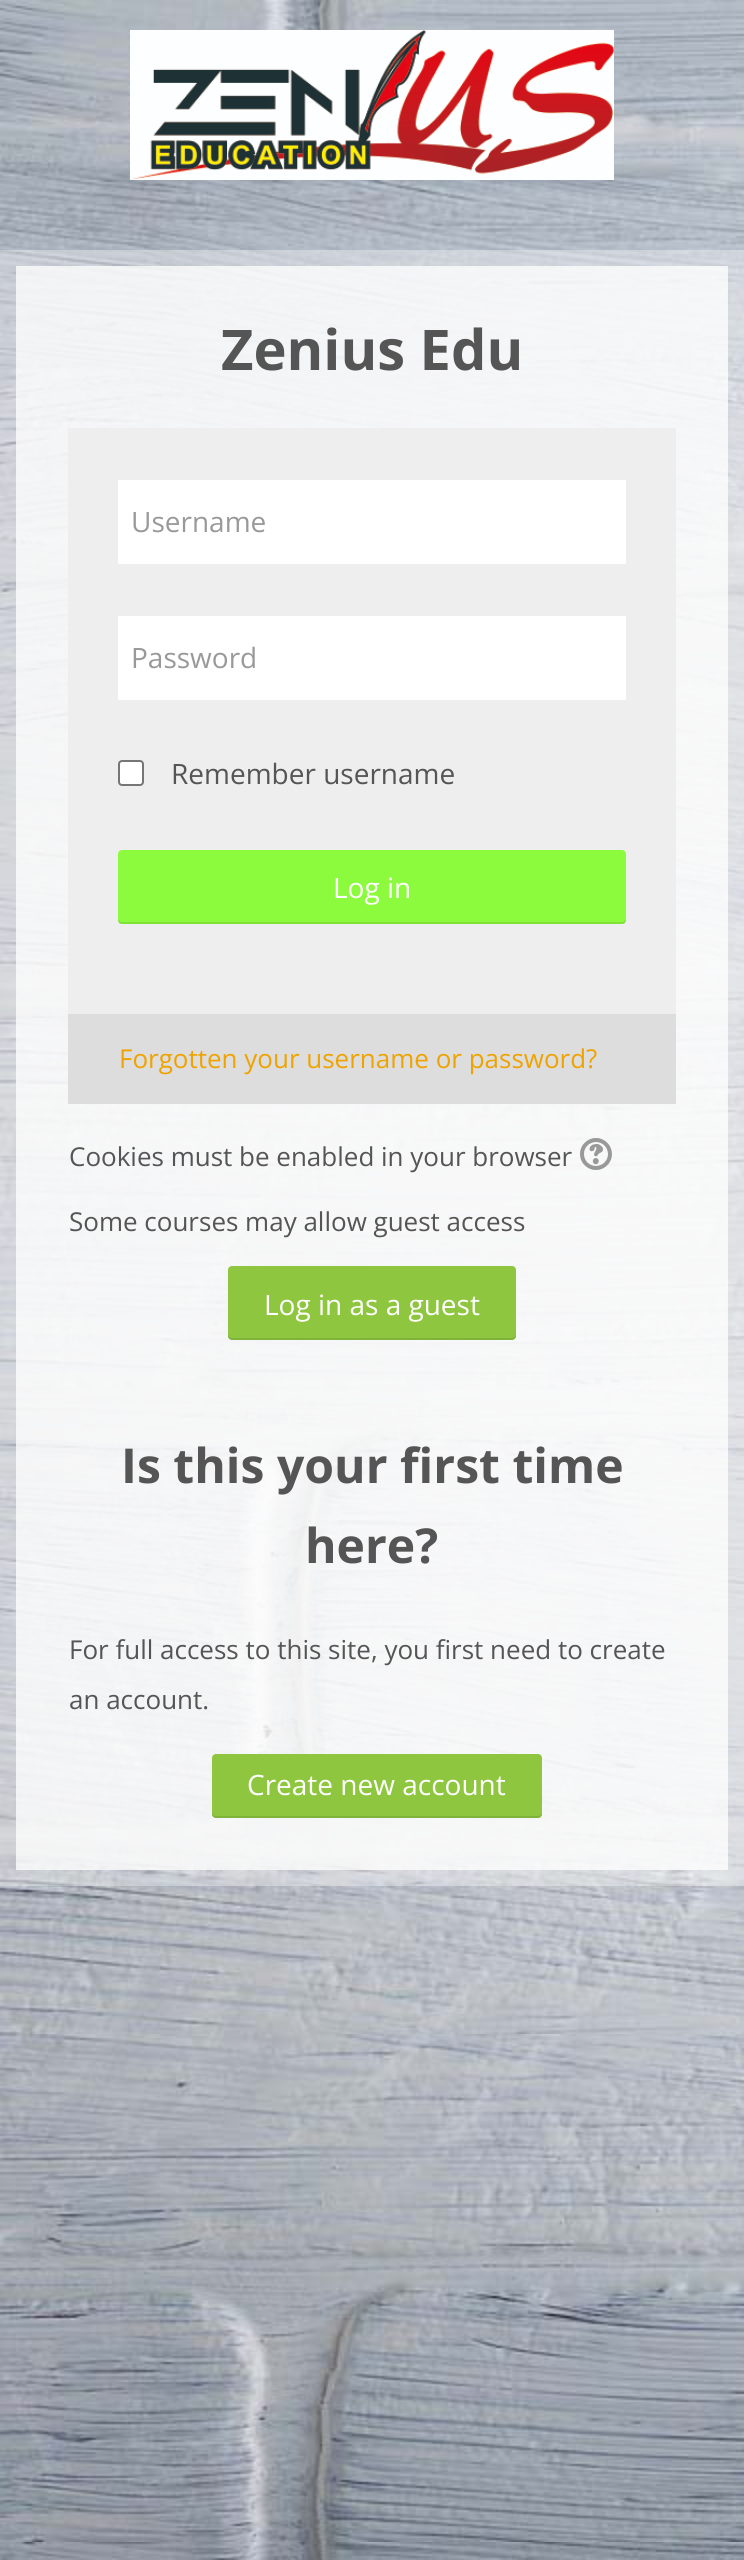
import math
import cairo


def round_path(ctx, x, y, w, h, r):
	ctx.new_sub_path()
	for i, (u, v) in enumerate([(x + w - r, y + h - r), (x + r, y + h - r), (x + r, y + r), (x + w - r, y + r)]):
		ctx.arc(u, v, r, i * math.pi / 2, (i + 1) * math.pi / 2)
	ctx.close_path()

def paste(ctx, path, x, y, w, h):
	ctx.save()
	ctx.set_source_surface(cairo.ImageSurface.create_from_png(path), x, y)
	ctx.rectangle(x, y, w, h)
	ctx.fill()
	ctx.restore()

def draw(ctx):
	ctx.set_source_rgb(1, 1, 1)
	ctx.paint()
	paste(ctx, 'media/1.png', 0, 0, 744, 2560)
	paste(ctx, 'media/2.png', 130, 30, 484, 150)
	ctx.set_source_rgba(1, 1, 1, 0.85)
	ctx.rectangle(16, 266, 712, 1604)
	ctx.fill()
	ctx.new_path()
	ctx.move_to(8, 258)
	ctx.line_to(736, 258)
	ctx.line_to(736, 1878)
	ctx.line_to(8, 1878)
	ctx.close_path()
	ctx.set_source_rgba(1, 1, 1, 0.35)
	ctx.set_line_width(16)
	ctx.stroke()
	ctx.select_font_face('Open Sans', cairo.FONT_SLANT_NORMAL, cairo.FONT_WEIGHT_BOLD)
	ctx.set_font_size(56)
	ctx.set_source_rgb(0.333, 0.333, 0.333)
	ctx.move_to(221, 370)
	ctx.show_text('Zenius Edu')
	ctx.set_source_rgb(0.933, 0.933, 0.933)
	ctx.rectangle(68, 428, 608, 586)
	ctx.fill()
	ctx.set_source_rgb(1, 1, 1)
	ctx.rectangle(118, 480, 508, 84)
	ctx.fill()
	ctx.select_font_face('Open Sans')
	ctx.set_font_size(28)
	ctx.set_source_rgb(0.6, 0.6, 0.6)
	ctx.move_to(131, 532)
	ctx.show_text('Username')
	ctx.set_source_rgb(1, 1, 1)
	ctx.rectangle(118, 616, 508, 84)
	ctx.fill()
	ctx.set_source_rgb(0.6, 0.6, 0.6)
	ctx.move_to(131, 668)
	ctx.show_text('Password')
	ctx.set_source_rgb(1, 1, 1)
	round_path(ctx, 119, 761, 24, 24, 3)
	ctx.fill_preserve()
	ctx.set_source_rgb(0.463, 0.463, 0.463)
	ctx.set_line_width(2)
	ctx.stroke()
	ctx.set_source_rgb(0.333, 0.333, 0.333)
	ctx.move_to(171, 784)
	ctx.show_text('Remember username')
	ctx.set_source_rgb(0.553, 0.984, 0.239)
	round_path(ctx, 118, 850, 508, 74, 4)
	ctx.fill()
	ctx.set_source_rgba(0, 0, 0, 0.1)
	ctx.new_path()
	ctx.move_to(118, 918)
	ctx.curve_to(118, 921, 118, 924, 122, 924)
	ctx.line_to(622, 924)
	ctx.curve_to(626, 924, 626, 921, 626, 918)
	ctx.curve_to(626, 920, 624, 922, 622, 922)
	ctx.line_to(122, 922)
	ctx.curve_to(120, 922, 118, 920, 118, 918)
	ctx.close_path()
	ctx.fill()
	ctx.set_source_rgb(1, 1, 1)
	ctx.move_to(333, 898)
	ctx.show_text('Log in')
	ctx.set_source_rgb(0.867, 0.867, 0.867)
	ctx.rectangle(68, 1014, 608, 90)
	ctx.fill()
	ctx.set_font_size(26)
	ctx.set_source_rgb(0.937, 0.639, 0)
	ctx.move_to(119, 1068)
	ctx.show_text('Forgotten your username or password?')
	ctx.set_source_rgb(0.333, 0.333, 0.333)
	ctx.move_to(69, 1166)
	ctx.show_text('Cookies must be enabled in your browser')
	paste(ctx, 'media/3.png', 580, 1138, 32, 32)
	ctx.move_to(69, 1231)
	ctx.show_text('Some courses may allow guest access')
	ctx.set_source_rgb(0.557, 0.776, 0.247)
	round_path(ctx, 228, 1266, 288, 74, 4)
	ctx.fill()
	ctx.set_source_rgba(0, 0, 0, 0.1)
	ctx.new_path()
	ctx.move_to(228, 1334)
	ctx.line_to(228, 1336)
	ctx.curve_to(228, 1338, 230, 1340, 232, 1340)
	ctx.line_to(512, 1340)
	ctx.curve_to(514, 1340, 516, 1338, 516, 1336)
	ctx.line_to(516, 1334)
	ctx.curve_to(516, 1336, 514, 1338, 512, 1338)
	ctx.line_to(232, 1338)
	ctx.curve_to(230, 1338, 228, 1336, 228, 1334)
	ctx.close_path()
	ctx.fill()
	ctx.set_font_size(28)
	ctx.set_source_rgb(1, 1, 1)
	ctx.move_to(264, 1315)
	ctx.show_text('Log in as a guest')
	ctx.select_font_face('Open Sans', cairo.FONT_SLANT_NORMAL, cairo.FONT_WEIGHT_BOLD)
	ctx.set_font_size(48.1)
	ctx.set_source_rgb(0.333, 0.333, 0.333)
	ctx.move_to(121, 1483)
	ctx.show_text('Is this your first time')
	ctx.move_to(305, 1563)
	ctx.show_text('here?')
	ctx.select_font_face('Open Sans')
	ctx.set_font_size(26)
	ctx.move_to(69, 1659)
	ctx.show_text('For full access to this site, you first need to create')
	ctx.move_to(69, 1709)
	ctx.show_text('an account.')
	ctx.set_source_rgb(0.557, 0.776, 0.247)
	round_path(ctx, 212, 1754, 330, 64, 4)
	ctx.fill()
	ctx.set_source_rgba(0, 0, 0, 0.1)
	ctx.new_path()
	ctx.move_to(212, 1812)
	ctx.curve_to(212, 1815, 212, 1818, 216, 1818)
	ctx.line_to(538, 1818)
	ctx.curve_to(542, 1818, 542, 1815, 542, 1812)
	ctx.curve_to(542, 1814, 540, 1816, 538, 1816)
	ctx.line_to(216, 1816)
	ctx.curve_to(214, 1816, 212, 1814, 212, 1812)
	ctx.close_path()
	ctx.fill()
	ctx.set_font_size(28)
	ctx.set_source_rgb(1, 1, 1)
	ctx.move_to(247, 1795)
	ctx.show_text('Create new account')


surface = cairo.ImageSurface(cairo.FORMAT_RGB24, 744, 2560)
ctx = cairo.Context(surface)
options = cairo.FontOptions()
options.set_hint_metrics(cairo.HINT_METRICS_OFF)
options.set_hint_style(cairo.HINT_STYLE_NONE)
ctx.set_font_options(options)
ctx.set_miter_limit(4)
draw(ctx)
surface.write_to_png('image.png')
